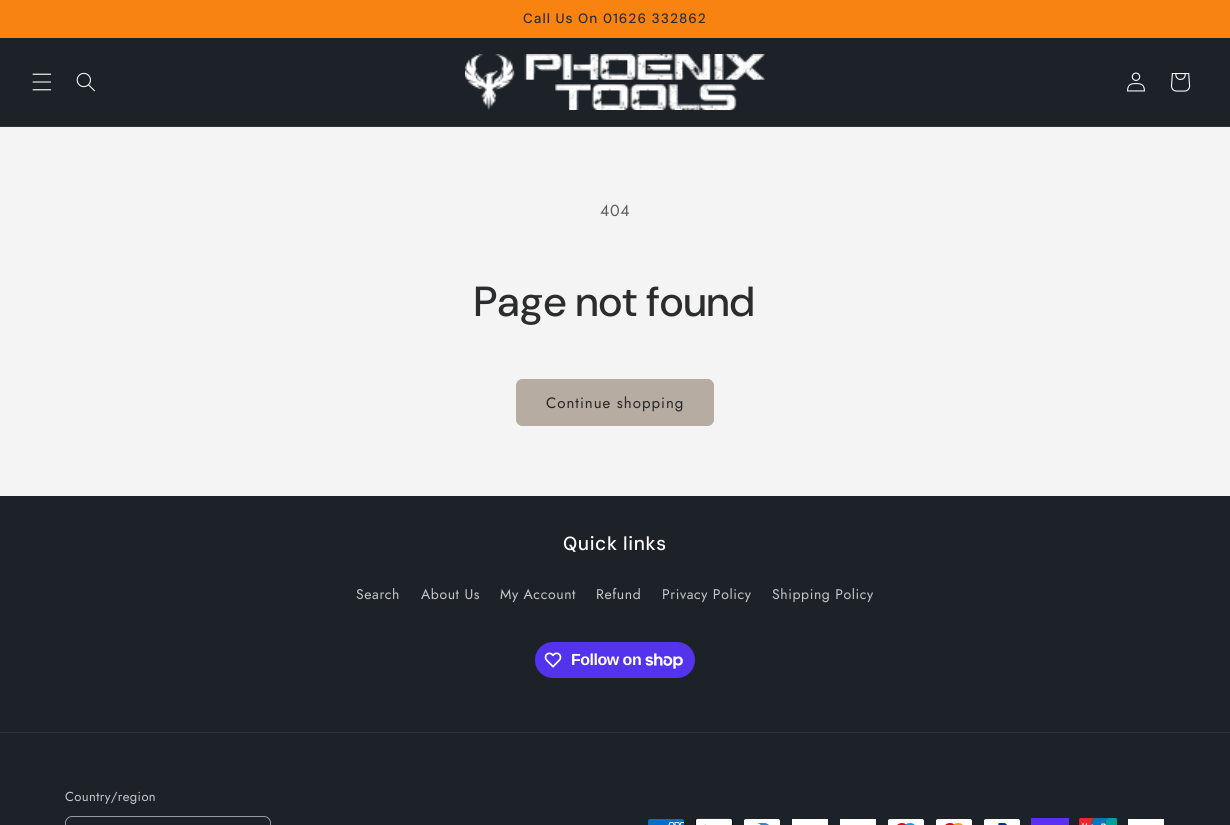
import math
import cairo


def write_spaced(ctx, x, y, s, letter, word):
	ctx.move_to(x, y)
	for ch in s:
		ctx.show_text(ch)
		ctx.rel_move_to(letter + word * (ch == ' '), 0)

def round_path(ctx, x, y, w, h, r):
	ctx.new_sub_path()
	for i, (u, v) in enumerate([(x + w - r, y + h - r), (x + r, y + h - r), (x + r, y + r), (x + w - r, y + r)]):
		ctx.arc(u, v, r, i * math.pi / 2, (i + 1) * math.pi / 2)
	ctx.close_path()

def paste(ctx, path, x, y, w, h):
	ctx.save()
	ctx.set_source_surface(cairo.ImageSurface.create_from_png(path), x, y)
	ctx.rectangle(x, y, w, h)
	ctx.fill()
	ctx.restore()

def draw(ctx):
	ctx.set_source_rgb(0.957, 0.957, 0.957)
	ctx.paint()
	ctx.set_source_rgb(0.976, 0.514, 0.067)
	ctx.rectangle(0, 0, 1230, 38)
	ctx.fill()
	ctx.select_font_face('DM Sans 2 Medium')
	ctx.set_font_size(13.6)
	ctx.set_source_rgb(0.169, 0.173, 0.176)
	write_spaced(ctx, 523, 23, 'Call Us On 01626 332862', 1, 0)
	ctx.set_source_rgb(0.11, 0.133, 0.157)
	ctx.rectangle(0, 38, 1230, 88)
	ctx.fill()
	ctx.set_source_rgb(0.18, 0.204, 0.224)
	ctx.rectangle(0, 126, 1230, 1)
	ctx.fill()
	paste(ctx, 'media/1.png', 32, 73, 20, 18)
	paste(ctx, 'media/2.png', 76, 72, 19, 20)
	paste(ctx, 'media/3.png', 465, 54, 300, 56)
	paste(ctx, 'media/4.png', 1127, 72, 18, 20)
	paste(ctx, 'media/5.png', 1171, 73, 20, 19)
	ctx.select_font_face('Jost')
	ctx.set_font_size(16)
	ctx.set_source_rgb(0.365, 0.369, 0.373)
	write_spaced(ctx, 600, 216, '404', 0.6, 0)
	ctx.select_font_face('DM Sans Medium')
	ctx.set_font_size(42)
	ctx.set_source_rgb(0.169, 0.173, 0.176)
	write_spaced(ctx, 474, 316, 'Page not found', 0.6, 0)
	ctx.set_source_rgb(0.718, 0.675, 0.635)
	round_path(ctx, 516, 379, 198, 47, 7)
	ctx.fill()
	round_path(ctx, 516.5, 379.5, 197, 46, 6.5)
	ctx.set_line_width(1)
	ctx.stroke()
	ctx.select_font_face('Jost')
	ctx.set_font_size(15)
	ctx.set_source_rgb(0.149, 0.149, 0.149)
	write_spaced(ctx, 546, 408, 'Continue shopping', 1, 0)
	ctx.set_source_rgb(0.11, 0.133, 0.157)
	ctx.rectangle(0, 496, 1230, 329)
	ctx.fill()
	ctx.select_font_face('DM Sans 2 Medium')
	ctx.set_font_size(19)
	ctx.set_source_rgb(1, 1, 1)
	write_spaced(ctx, 563, 550, 'Quick links', 0.6, 0)
	ctx.select_font_face('Jost')
	ctx.set_font_size(14)
	ctx.set_source_rgb(0.776, 0.784, 0.788)
	for x, y, s in [
		(356, 599, 'Search'),
		(421, 599, 'About Us'),
		(500, 599, 'My Account'),
		(596, 599, 'Refund'),
		(662, 599, 'Privacy Policy'),
		(772, 599, 'Shipping Policy'),
	]:
		write_spaced(ctx, x, y, s, 0.6, 0)
	ctx.set_source_rgb(0.329, 0.2, 0.922)
	round_path(ctx, 535, 642, 160, 36, 18)
	ctx.fill()
	paste(ctx, 'media/6.png', 544, 652, 18, 16)
	ctx.select_font_face('Liberation Sans', cairo.FONT_SLANT_NORMAL, cairo.FONT_WEIGHT_BOLD)
	ctx.set_font_size(16)
	ctx.set_source_rgb(1, 1, 1)
	write_spaced(ctx, 571, 665, 'Follow on', -0.5, 0)
	paste(ctx, 'media/7.png', 645, 653, 38, 16)
	ctx.set_source_rgb(0.18, 0.204, 0.224)
	ctx.rectangle(0, 732, 1230, 1)
	ctx.fill()
	ctx.select_font_face('Jost')
	ctx.set_font_size(13)
	ctx.set_source_rgb(0.776, 0.784, 0.788)
	write_spaced(ctx, 65, 801, 'Country/region', 0.4, 0)
	round_path(ctx, 65.5, 816.5, 205, 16, 6.5)
	ctx.set_source_rgb(0.6, 0.612, 0.62)
	ctx.stroke()
	paste(ctx, 'media/8.png', 648, 819, 36, 6)
	paste(ctx, 'media/9.png', 695, 818, 38, 7)
	paste(ctx, 'media/10.png', 744, 819, 36, 6)
	ctx.set_source_rgb(1, 1, 1)
	ctx.rectangle(792, 819, 36, 6)
	ctx.fill()
	ctx.rectangle(840, 819, 36, 6)
	ctx.fill()
	paste(ctx, 'media/11.png', 888, 819, 36, 6)
	paste(ctx, 'media/12.png', 936, 819, 36, 6)
	paste(ctx, 'media/13.png', 984, 819, 36, 6)
	ctx.set_source_rgb(0.353, 0.192, 0.957)
	ctx.rectangle(1031, 818, 38, 7)
	ctx.fill()
	paste(ctx, 'media/14.png', 1079, 818, 38, 7)
	ctx.set_source_rgb(1, 1, 1)
	ctx.rectangle(1128, 819, 36, 6)
	ctx.fill()


surface = cairo.ImageSurface(cairo.FORMAT_RGB24, 1230, 825)
ctx = cairo.Context(surface)
options = cairo.FontOptions()
options.set_hint_metrics(cairo.HINT_METRICS_OFF)
options.set_hint_style(cairo.HINT_STYLE_NONE)
ctx.set_font_options(options)
ctx.set_miter_limit(4)
draw(ctx)
surface.write_to_png('image.png')
